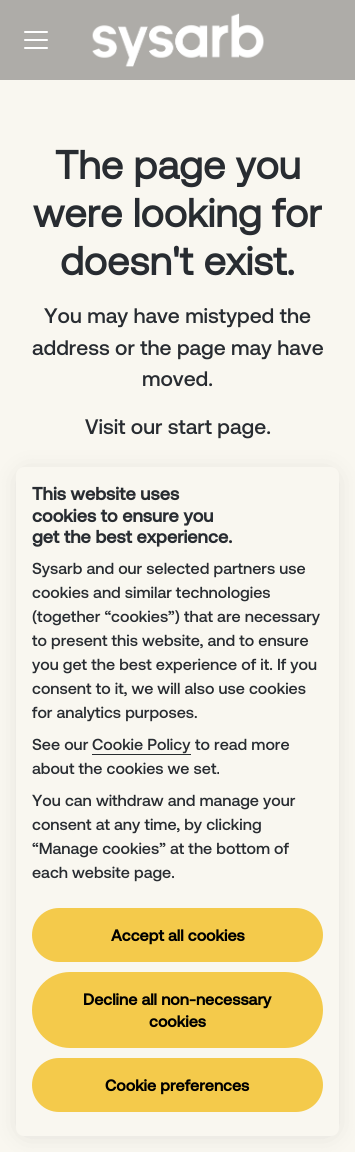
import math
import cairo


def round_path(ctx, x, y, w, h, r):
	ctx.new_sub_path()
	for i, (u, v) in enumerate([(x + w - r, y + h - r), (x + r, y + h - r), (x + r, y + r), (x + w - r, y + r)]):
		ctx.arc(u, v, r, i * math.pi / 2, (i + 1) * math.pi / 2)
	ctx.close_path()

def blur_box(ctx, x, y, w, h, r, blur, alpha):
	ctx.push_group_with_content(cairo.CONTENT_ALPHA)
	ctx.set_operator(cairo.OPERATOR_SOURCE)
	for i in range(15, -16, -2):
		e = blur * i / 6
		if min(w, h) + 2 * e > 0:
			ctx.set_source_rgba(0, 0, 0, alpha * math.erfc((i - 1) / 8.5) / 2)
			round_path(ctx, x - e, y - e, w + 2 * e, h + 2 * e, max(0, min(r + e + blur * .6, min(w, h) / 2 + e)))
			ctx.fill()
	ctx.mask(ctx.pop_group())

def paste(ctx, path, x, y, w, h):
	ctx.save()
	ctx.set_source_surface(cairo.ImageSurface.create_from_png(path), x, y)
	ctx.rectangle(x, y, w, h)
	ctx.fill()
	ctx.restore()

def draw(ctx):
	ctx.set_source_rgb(0.973, 0.965, 0.941)
	ctx.paint()
	ctx.set_source_rgb(0.682, 0.675, 0.659)
	ctx.rectangle(0, 0, 355, 80)
	ctx.fill()
	ctx.set_source_rgb(1, 1, 1)
	round_path(ctx, 24, 31, 24, 2, 1)
	ctx.fill()
	round_path(ctx, 24, 39, 24, 2, 1)
	ctx.fill()
	round_path(ctx, 24, 47, 24, 2, 1)
	ctx.fill()
	paste(ctx, 'media/1.png', 92, 13, 172, 54)
	ctx.select_font_face('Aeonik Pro', cairo.FONT_SLANT_NORMAL, cairo.FONT_WEIGHT_BOLD)
	ctx.set_font_size(40)
	ctx.set_source_rgb(0.157, 0.173, 0.192)
	for x, y, s in [
		(55, 179, 'The page you'),
		(33, 227, 'were looking for'),
		(60, 275, 'doesn\'t exist.'),
	]:
		ctx.move_to(x, y)
		ctx.show_text(s)
	ctx.select_font_face('Aeonik Pro Medium')
	ctx.set_font_size(21)
	for x, y, s in [
		(44, 323, 'You may have mistyped the'),
		(32, 355, 'address or the page may have'),
		(142, 386, 'moved.'),
		(85, 434, 'Visit our start page.'),
	]:
		ctx.move_to(x, y)
		ctx.show_text(s)
	ctx.set_source_rgb(0, 0, 0)
	blur_box(ctx, 26, 479, 303, 649, 0, 13.5, 0.18)
	ctx.set_source_rgb(0.973, 0.965, 0.941)
	round_path(ctx, 16, 467, 323, 669, 8)
	ctx.fill()
	ctx.select_font_face('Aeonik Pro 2', cairo.FONT_SLANT_NORMAL, cairo.FONT_WEIGHT_BOLD)
	ctx.set_font_size(18)
	ctx.set_source_rgb(0.157, 0.173, 0.192)
	for x, y, s in [
		(32, 500, 'This website uses'),
		(32, 522, 'cookies to ensure you'),
		(32, 543, 'get the best experience.'),
	]:
		ctx.move_to(x, y)
		ctx.show_text(s)
	ctx.select_font_face('Aeonik Pro Medium')
	ctx.set_font_size(16)
	for x, y, s in [
		(32, 574, 'Sysarb and our selected partners use'),
		(32, 598, 'cookies and similar technologies'),
		(32, 622, '(together “cookies”) that are necessary'),
		(32, 646, 'to present this website, and to ensure'),
		(32, 670, 'you get the best experience of it. If you'),
		(32, 694, 'consent to it, we will also use cookies'),
		(32, 718, 'for analytics purposes.'),
		(32, 750, 'See our'),
		(92, 750, 'Cookie Policy'),
	]:
		ctx.move_to(x, y)
		ctx.show_text(s)
	ctx.set_source_rgb(0.157, 0.176, 0.188)
	ctx.rectangle(92, 754, 99, 1)
	ctx.fill()
	ctx.set_source_rgb(0.157, 0.173, 0.192)
	for x, y, s in [
		(195, 750, 'to read more'),
		(32, 774, 'about the cookies we set.'),
		(32, 806, 'You can withdraw and manage your'),
		(32, 830, 'consent at any time, by clicking'),
		(32, 854, '“Manage cookies” at the bottom of'),
		(32, 878, 'each website page.'),
	]:
		ctx.move_to(x, y)
		ctx.show_text(s)
	ctx.set_source_rgb(0.957, 0.792, 0.294)
	round_path(ctx, 32, 908, 291, 54, 27)
	ctx.fill()
	ctx.select_font_face('Aeonik Pro 2', cairo.FONT_SLANT_NORMAL, cairo.FONT_WEIGHT_BOLD)
	ctx.set_source_rgb(0, 0, 0)
	ctx.move_to(111, 941)
	ctx.show_text('Accept all cookies')
	ctx.set_source_rgb(0.957, 0.792, 0.294)
	round_path(ctx, 32, 972, 291, 76, 38)
	ctx.fill()
	ctx.set_source_rgb(0, 0, 0)
	ctx.move_to(83, 1005)
	ctx.show_text('Decline all non-necessary')
	ctx.move_to(149, 1027)
	ctx.show_text('cookies')
	ctx.set_source_rgb(0.957, 0.792, 0.294)
	round_path(ctx, 32, 1058, 291, 54, 27)
	ctx.fill()
	ctx.set_source_rgb(0, 0, 0)
	ctx.move_to(105, 1091)
	ctx.show_text('Cookie preferences')


surface = cairo.ImageSurface(cairo.FORMAT_RGB24, 355, 1152)
ctx = cairo.Context(surface)
options = cairo.FontOptions()
options.set_hint_metrics(cairo.HINT_METRICS_OFF)
options.set_hint_style(cairo.HINT_STYLE_NONE)
ctx.set_font_options(options)
ctx.set_miter_limit(4)
draw(ctx)
surface.write_to_png('image.png')
